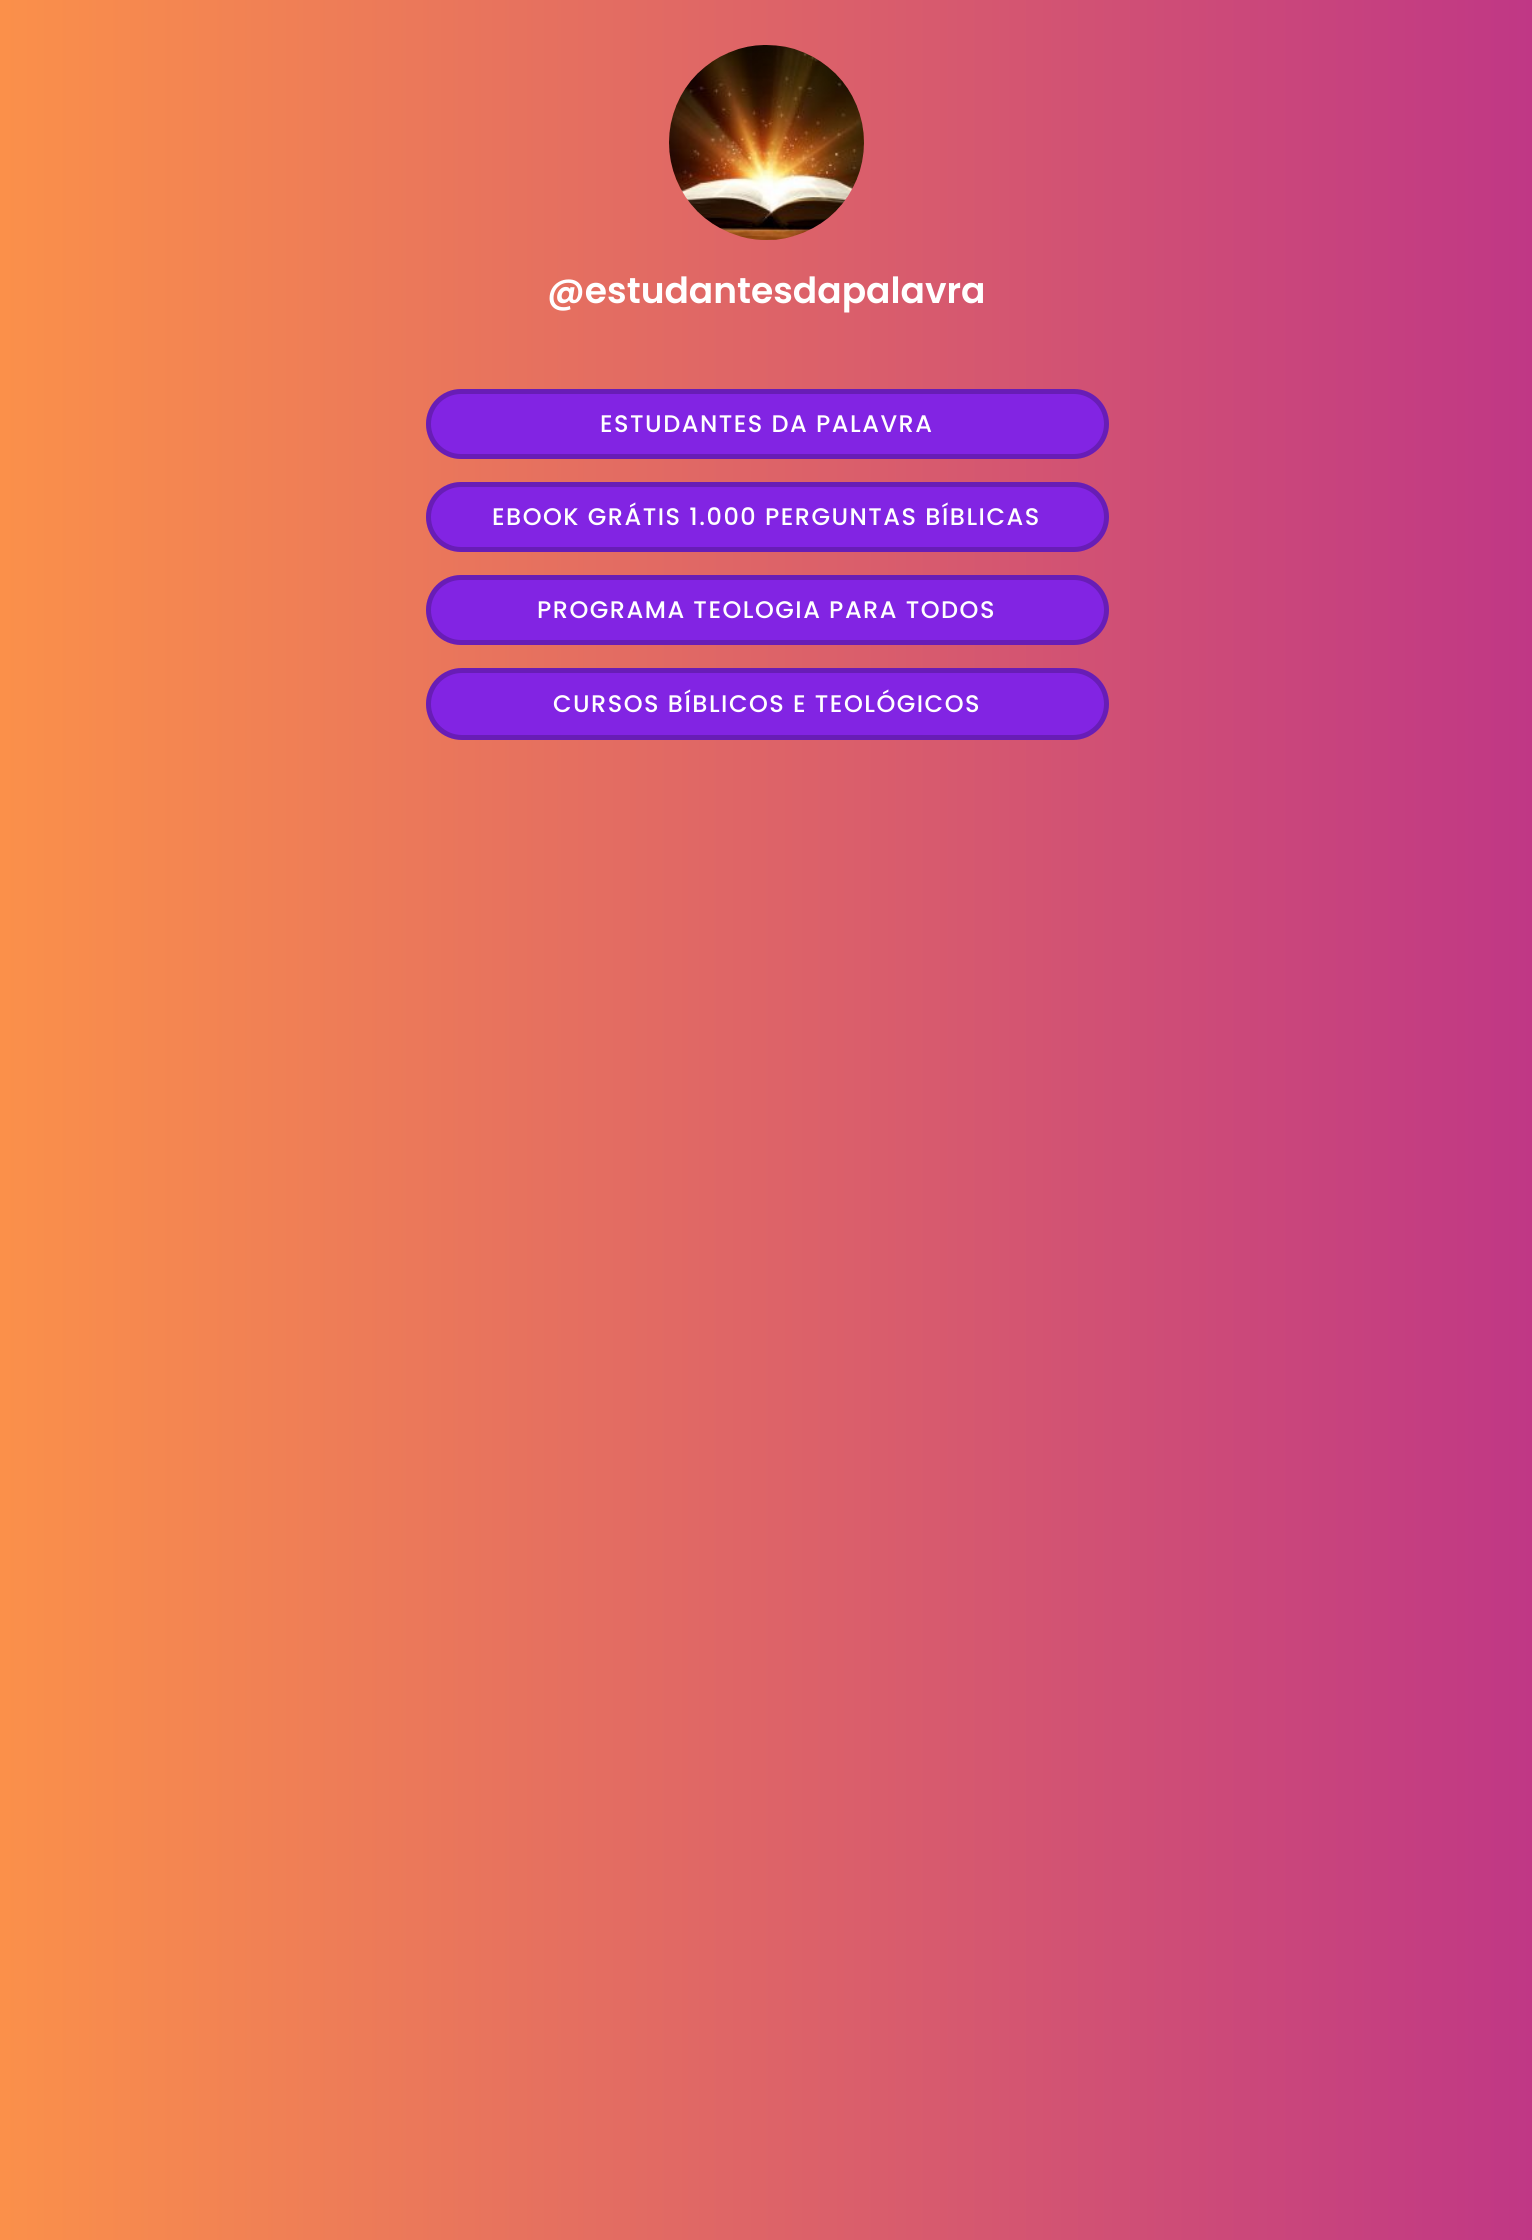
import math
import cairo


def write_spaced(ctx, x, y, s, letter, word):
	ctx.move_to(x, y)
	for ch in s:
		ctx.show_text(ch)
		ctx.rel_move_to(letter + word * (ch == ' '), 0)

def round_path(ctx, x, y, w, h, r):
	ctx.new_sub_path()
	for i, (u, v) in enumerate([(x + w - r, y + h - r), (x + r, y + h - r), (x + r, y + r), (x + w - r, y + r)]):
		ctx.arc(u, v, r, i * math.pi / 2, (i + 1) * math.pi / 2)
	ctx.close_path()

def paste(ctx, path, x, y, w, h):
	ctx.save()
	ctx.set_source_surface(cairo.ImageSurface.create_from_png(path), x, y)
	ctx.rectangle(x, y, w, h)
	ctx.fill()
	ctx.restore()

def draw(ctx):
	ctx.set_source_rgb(1, 1, 1)
	ctx.paint()
	gradient = cairo.LinearGradient(0, 1121, 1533, 1121)
	gradient.add_color_stop_rgba(0, 0.984, 0.565, 0.29, 1)
	gradient.add_color_stop_rgba(1, 0.753, 0.216, 0.522, 1)
	ctx.set_source(gradient)
	ctx.rectangle(0, 0, 1532, 2240)
	ctx.fill()
	paste(ctx, 'media/1.png', 669, 45, 195, 195)
	ctx.select_font_face('Poppins SemiBold')
	ctx.set_font_size(36)
	ctx.set_source_rgb(1, 1, 1)
	ctx.move_to(547, 303)
	ctx.show_text('@estudantesdapalavra')
	ctx.set_source_rgb(0.51, 0.141, 0.89)
	round_path(ctx, 426, 389, 683, 70, 35)
	ctx.fill()
	round_path(ctx, 428.5, 391.5, 678, 65, 32.5)
	ctx.set_source_rgba(0, 0, 0, 0.2)
	ctx.set_line_width(5)
	ctx.stroke()
	ctx.select_font_face('Poppins Medium')
	ctx.set_font_size(24)
	ctx.set_source_rgb(1, 1, 1)
	write_spaced(ctx, 600, 432, 'ESTUDANTES DA PALAVRA', 1.5, 0)
	ctx.set_source_rgb(0.51, 0.141, 0.89)
	round_path(ctx, 426, 482, 683, 70, 35)
	ctx.fill()
	round_path(ctx, 428.5, 484.5, 678, 65, 32.5)
	ctx.set_source_rgba(0, 0, 0, 0.2)
	ctx.stroke()
	ctx.set_source_rgb(1, 1, 1)
	write_spaced(ctx, 492, 525, 'EBOOK GRÁTIS 1.000 PERGUNTAS BÍBLICAS', 1.5, 0)
	ctx.set_source_rgb(0.51, 0.141, 0.89)
	round_path(ctx, 426, 575, 683, 70, 35)
	ctx.fill()
	round_path(ctx, 428.5, 577.5, 678, 65, 32.5)
	ctx.set_source_rgba(0, 0, 0, 0.2)
	ctx.stroke()
	ctx.set_source_rgb(1, 1, 1)
	write_spaced(ctx, 537, 618, 'PROGRAMA TEOLOGIA PARA TODOS', 1.5, 0)
	ctx.set_source_rgb(0.51, 0.141, 0.89)
	round_path(ctx, 426, 668, 683, 72, 36)
	ctx.fill()
	round_path(ctx, 428.5, 670.5, 678, 67, 33.5)
	ctx.set_source_rgba(0, 0, 0, 0.2)
	ctx.stroke()
	ctx.set_source_rgb(1, 1, 1)
	write_spaced(ctx, 553, 712, 'CURSOS BÍBLICOS E TEOLÓGICOS', 1.5, 0)


surface = cairo.ImageSurface(cairo.FORMAT_RGB24, 1532, 2240)
ctx = cairo.Context(surface)
options = cairo.FontOptions()
options.set_hint_metrics(cairo.HINT_METRICS_OFF)
options.set_hint_style(cairo.HINT_STYLE_NONE)
ctx.set_font_options(options)
ctx.set_miter_limit(4)
draw(ctx)
surface.write_to_png('image.png')
